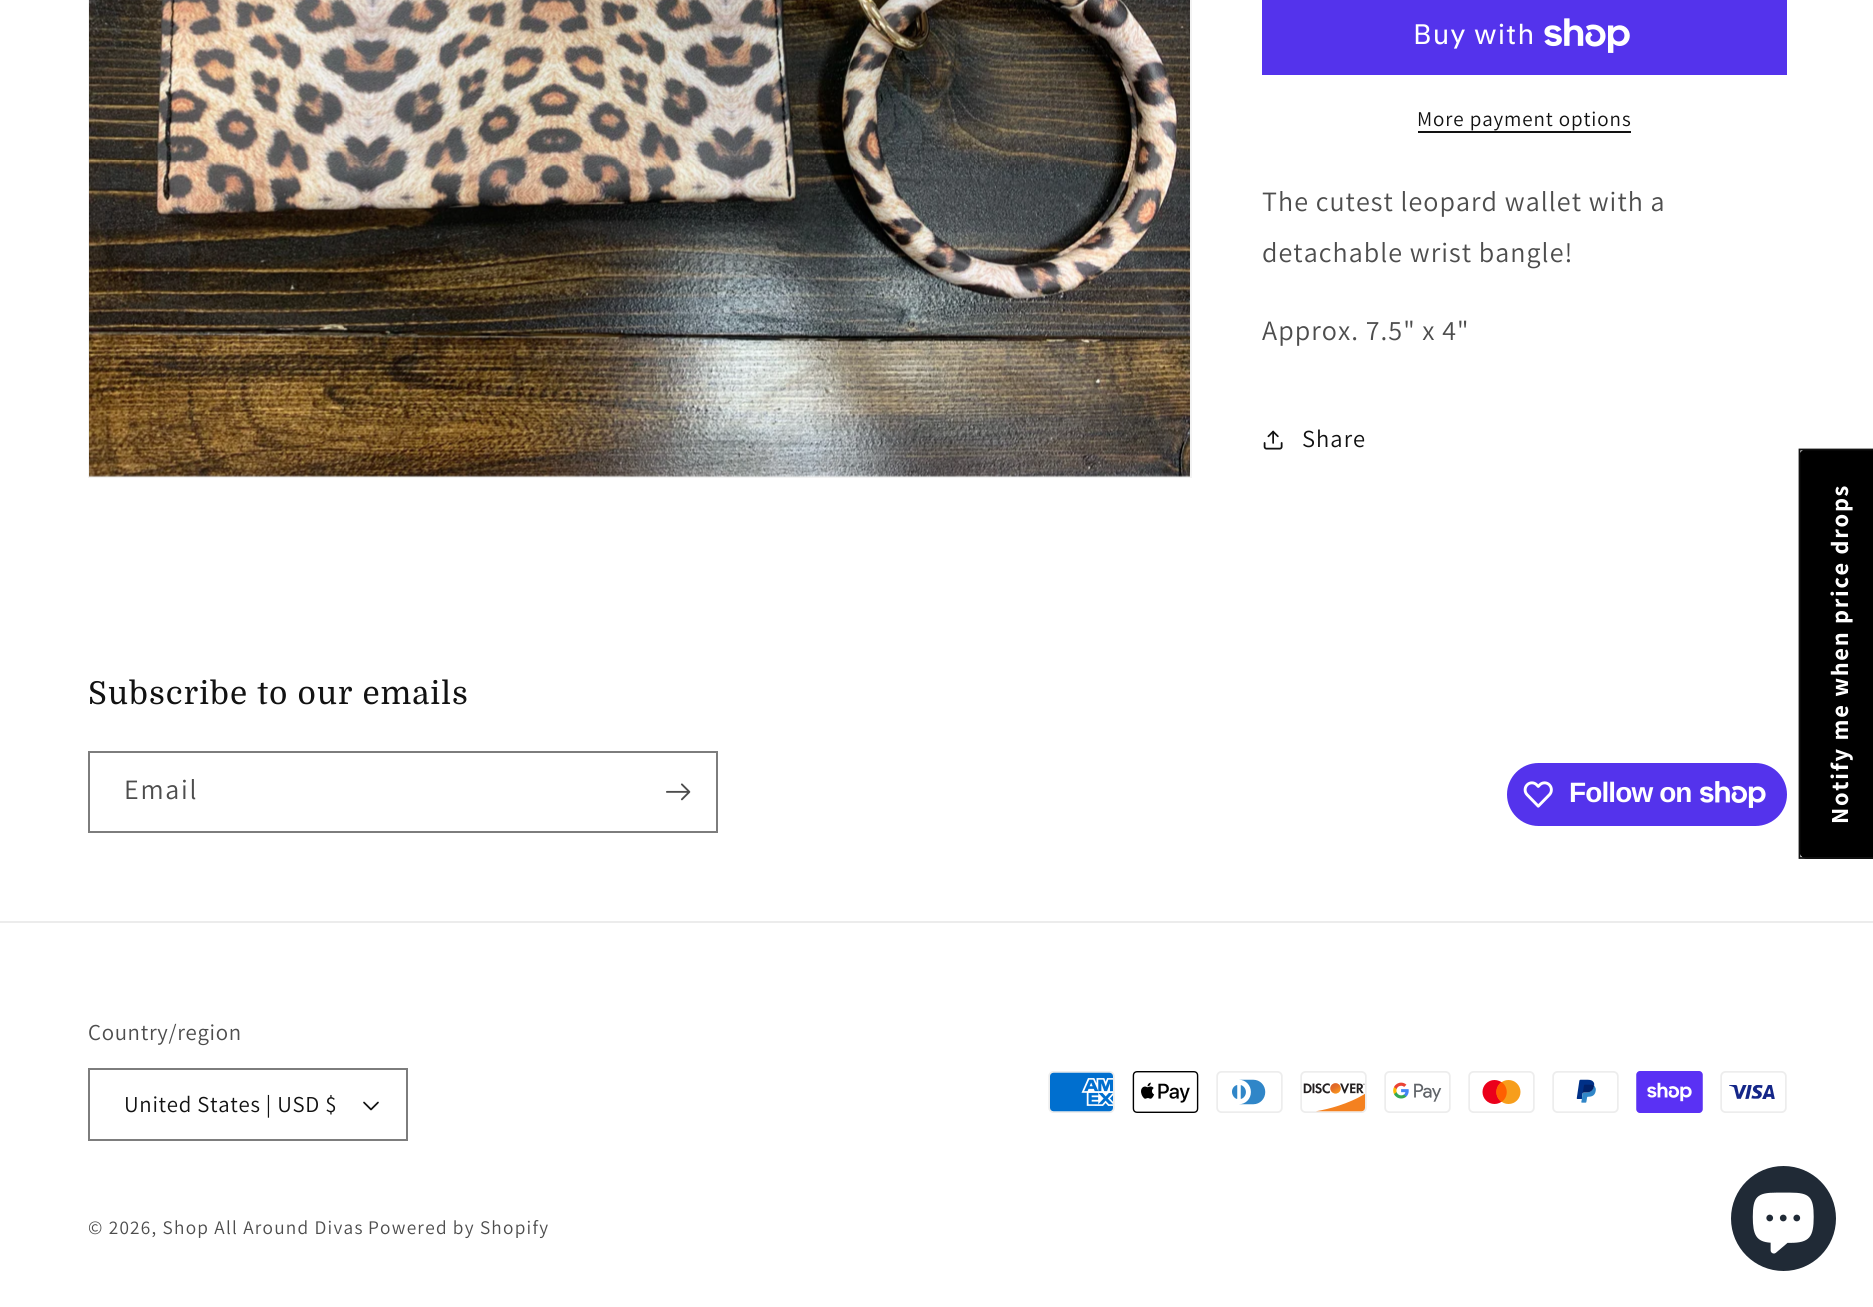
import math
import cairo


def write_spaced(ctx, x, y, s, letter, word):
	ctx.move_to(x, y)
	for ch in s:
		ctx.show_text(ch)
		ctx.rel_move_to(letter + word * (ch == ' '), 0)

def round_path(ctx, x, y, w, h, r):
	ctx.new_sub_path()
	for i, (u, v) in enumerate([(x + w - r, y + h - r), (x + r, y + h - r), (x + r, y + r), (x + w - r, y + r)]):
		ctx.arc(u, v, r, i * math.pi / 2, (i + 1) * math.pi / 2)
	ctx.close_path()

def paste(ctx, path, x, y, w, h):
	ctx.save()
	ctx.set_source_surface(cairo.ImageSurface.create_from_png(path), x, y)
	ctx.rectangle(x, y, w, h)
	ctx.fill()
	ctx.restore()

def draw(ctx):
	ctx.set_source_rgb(1, 1, 1)
	ctx.paint()
	ctx.rectangle(89, -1, 1102, 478)
	ctx.set_source_rgb(0.953, 0.953, 0.953)
	ctx.stroke()
	paste(ctx, 'media/1.png', 89, 0, 1101, 477)
	ctx.set_source_rgb(0.329, 0.2, 0.922)
	ctx.rectangle(1262, 0, 525, 75)
	ctx.fill()
	ctx.select_font_face('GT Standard')
	ctx.set_font_size(28)
	ctx.set_source_rgb(1, 1, 1)
	write_spaced(ctx, 1413, 44, 'Buy with', 1.05, 0)
	paste(ctx, 'media/2.png', 1544, 18, 86, 35)
	ctx.select_font_face('Assistant')
	ctx.set_font_size(21)
	ctx.set_source_rgb(0.071, 0.071, 0.071)
	write_spaced(ctx, 1417, 126, 'More payment options', 0.9, 0)
	ctx.rectangle(1418, 131, 213, 2)
	ctx.fill()
	ctx.set_font_size(28)
	ctx.set_source_rgb(0.302, 0.302, 0.302)
	for x, y, s in [
		(1262, 211, 'The cutest leopard wallet with a'),
		(1262, 262, 'detachable wrist bangle!'),
		(1262, 340, 'Approx. 7.5" x 4"'),
	]:
		write_spaced(ctx, x, y, s, 1.05, 0)
	paste(ctx, 'media/3.png', 1263, 430, 20, 20)
	ctx.set_font_size(24.5)
	ctx.set_source_rgb(0.071, 0.071, 0.071)
	write_spaced(ctx, 1302, 447, 'Share', 1.05, 0)
	ctx.select_font_face('Domine')
	ctx.set_font_size(31.5)
	write_spaced(ctx, 88, 704, 'Subscribe to our emails', 1.05, 0)
	ctx.rectangle(89, 752, 628, 80)
	ctx.set_source_rgb(0.49, 0.49, 0.49)
	ctx.stroke()
	ctx.select_font_face('Assistant')
	ctx.set_font_size(28)
	ctx.set_source_rgb(0.302, 0.302, 0.302)
	write_spaced(ctx, 124, 799, 'Email', 1.75, 0)
	paste(ctx, 'media/4.png', 666, 783, 25, 18)
	ctx.set_source_rgb(0.329, 0.2, 0.922)
	round_path(ctx, 1507, 763, 280, 63, 31.5)
	ctx.fill()
	paste(ctx, 'media/5.png', 1523, 781, 30, 27)
	ctx.select_font_face('Liberation Sans', cairo.FONT_SLANT_NORMAL, cairo.FONT_WEIGHT_BOLD)
	ctx.set_source_rgb(1, 1, 1)
	write_spaced(ctx, 1569, 802, 'Follow on', -0.9, 0)
	paste(ctx, 'media/6.png', 1700, 781, 66, 27)
	ctx.set_source_rgb(0.925, 0.925, 0.925)
	ctx.rectangle(0, 921, 1873, 2)
	ctx.fill()
	ctx.select_font_face('Assistant')
	ctx.set_font_size(22.75)
	ctx.set_source_rgb(0.302, 0.302, 0.302)
	write_spaced(ctx, 88, 1040, 'Country/region', 0.7, 0)
	paste(ctx, 'media/7.png', 363, 1101, 16, 10)
	ctx.rectangle(89, 1069, 318, 71)
	ctx.set_source_rgb(0.49, 0.49, 0.49)
	ctx.stroke()
	ctx.set_source_rgb(0.071, 0.071, 0.071)
	write_spaced(ctx, 124, 1112, 'United States | USD $', 0.7, 0)
	paste(ctx, 'media/8.png', 1048, 1071, 67, 42)
	paste(ctx, 'media/9.png', 1132, 1071, 67, 42)
	paste(ctx, 'media/10.png', 1216, 1071, 67, 42)
	paste(ctx, 'media/11.png', 1300, 1071, 67, 42)
	paste(ctx, 'media/12.png', 1384, 1071, 67, 42)
	paste(ctx, 'media/13.png', 1468, 1071, 67, 42)
	paste(ctx, 'media/14.png', 1552, 1071, 67, 42)
	paste(ctx, 'media/15.png', 1636, 1071, 67, 42)
	paste(ctx, 'media/16.png', 1720, 1071, 67, 42)
	ctx.set_font_size(19.25)
	ctx.set_source_rgb(0.302, 0.302, 0.302)
	write_spaced(ctx, 88, 1234, '© 2026, Shop All Around Divas', 1.25, 0)
	write_spaced(ctx, 368, 1234, 'Powered by Shopify', 1.25, 0)
	ctx.set_source_rgb(0.125, 0.165, 0.212)
	ctx.new_path()
	ctx.arc(1783.5, 1218.5, 52.5, 0, 2 * math.pi)
	ctx.fill()
	paste(ctx, 'media/17.png', 1752, 1192, 62, 62)
	ctx.set_source_rgb(0, 0, 0)
	ctx.new_path()
	ctx.move_to(1799, 850)
	ctx.line_to(1799, 457)
	ctx.curve_to(1799, 452, 1803, 449, 1807, 449)
	ctx.line_to(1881, 449)
	ctx.line_to(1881, 859)
	ctx.line_to(1807, 859)
	ctx.curve_to(1803, 859, 1799, 855, 1799, 850)
	ctx.close_path()
	ctx.fill()
	ctx.select_font_face('Assistant', cairo.FONT_SLANT_NORMAL, cairo.FONT_WEIGHT_BOLD)
	ctx.set_font_size(24.5)
	ctx.set_source_rgb(1, 1, 1)
	ctx.save()
	ctx.translate(1848, 824)
	ctx.rotate(-90 * math.pi / 180)
	write_spaced(ctx, 0, 0, 'Notify me when price drops', 1.75, 0)
	ctx.restore()
	ctx.new_path()
	ctx.move_to(1799.5, 858)
	ctx.line_to(1799.5, 449.5)
	ctx.line_to(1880, 449.5)
	ctx.line_to(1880, 858)
	ctx.close_path()
	ctx.set_source_rgb(0.071, 0.071, 0.071)
	ctx.set_line_width(1.8)
	ctx.stroke()


surface = cairo.ImageSurface(cairo.FORMAT_RGB24, 1873, 1307)
ctx = cairo.Context(surface)
options = cairo.FontOptions()
options.set_hint_metrics(cairo.HINT_METRICS_OFF)
options.set_hint_style(cairo.HINT_STYLE_NONE)
ctx.set_font_options(options)
ctx.set_miter_limit(4)
draw(ctx)
surface.write_to_png('image.png')
